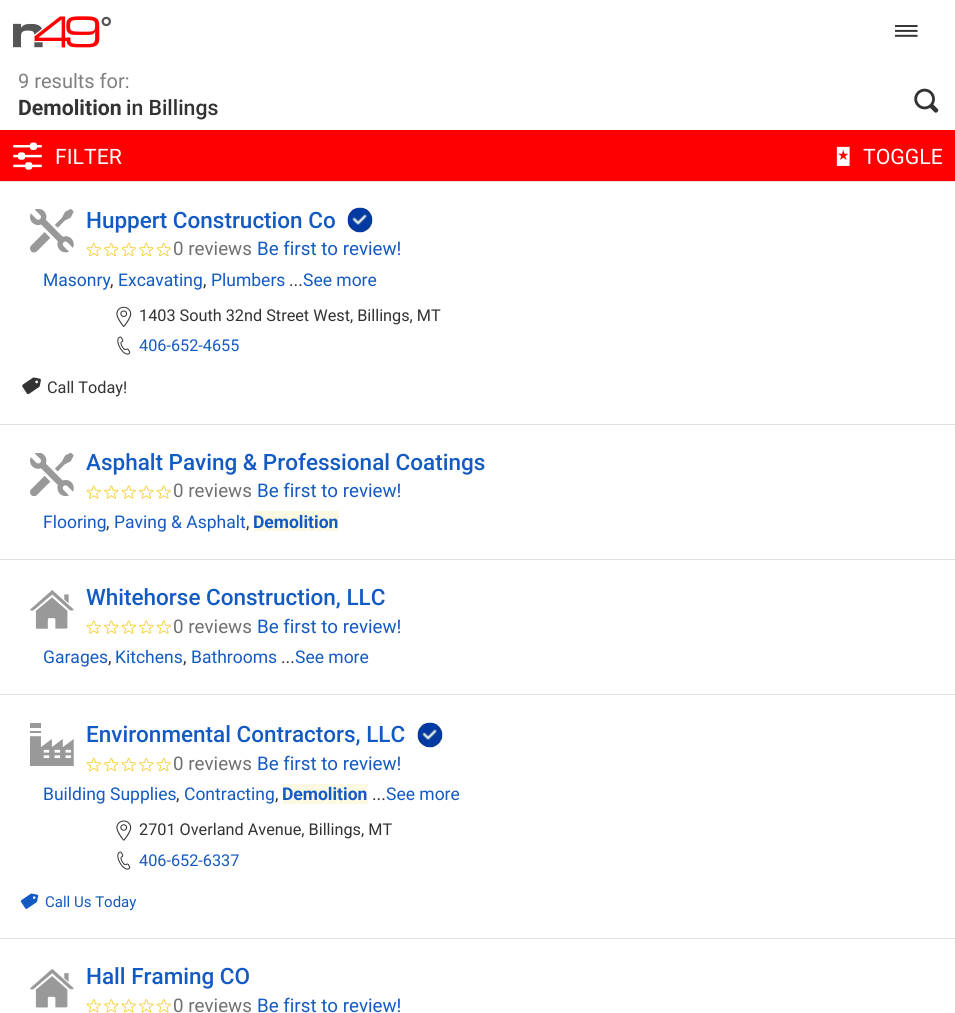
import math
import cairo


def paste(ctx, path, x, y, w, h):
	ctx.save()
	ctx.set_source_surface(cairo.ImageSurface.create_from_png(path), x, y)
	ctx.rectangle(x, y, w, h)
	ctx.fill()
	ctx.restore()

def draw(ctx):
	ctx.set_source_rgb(1, 1, 1)
	ctx.paint()
	paste(ctx, 'media/1.png', 13, 16, 98, 32)
	paste(ctx, 'media/2.png', 895, 25, 23, 12)
	ctx.set_source_rgb(0.882, 0.882, 0.882)
	ctx.rectangle(0, 181, 955, 1)
	ctx.fill()
	ctx.select_font_face('Roboto')
	ctx.set_font_size(20)
	ctx.set_source_rgb(0.502, 0.502, 0.502)
	ctx.move_to(18, 88)
	ctx.show_text('9 results for:')
	ctx.select_font_face('Roboto', cairo.FONT_SLANT_NORMAL, cairo.FONT_WEIGHT_BOLD)
	ctx.set_font_size(21.25)
	ctx.set_source_rgb(0.2, 0.2, 0.2)
	ctx.move_to(18, 115)
	ctx.show_text('Demolition')
	ctx.select_font_face('Roboto Medium')
	ctx.move_to(126, 115)
	ctx.show_text('in Billings')
	paste(ctx, 'media/3.png', 914, 88, 25, 25)
	ctx.set_source_rgb(1, 0, 0)
	ctx.rectangle(0, 130, 955, 51)
	ctx.fill()
	paste(ctx, 'media/4.png', 13, 142, 29, 28)
	ctx.select_font_face('Roboto')
	ctx.set_source_rgb(1, 1, 1)
	ctx.move_to(55, 164)
	ctx.show_text('FILTER')
	paste(ctx, 'media/5.png', 836, 146, 14, 20)
	ctx.move_to(863, 164)
	ctx.show_text('TOGGLE')
	ctx.set_source_rgb(0.882, 0.882, 0.882)
	ctx.rectangle(0, 424, 955, 1)
	ctx.fill()
	paste(ctx, 'media/6.png', 30, 209, 44, 44)
	ctx.select_font_face('Roboto Medium')
	ctx.set_font_size(22.5)
	ctx.set_source_rgb(0.075, 0.353, 0.761)
	ctx.move_to(86, 228)
	ctx.show_text('Huppert Construction Co')
	paste(ctx, 'media/7.png', 347, 207, 26, 26)
	paste(ctx, 'media/8.png', 86, 243, 15, 14)
	paste(ctx, 'media/9.png', 104, 243, 15, 14)
	paste(ctx, 'media/8.png', 121, 243, 15, 14)
	paste(ctx, 'media/9.png', 139, 243, 15, 14)
	paste(ctx, 'media/8.png', 156, 243, 15, 14)
	ctx.select_font_face('Roboto')
	ctx.set_font_size(18.75)
	ctx.set_source_rgb(0.439, 0.439, 0.439)
	ctx.move_to(173, 255)
	ctx.show_text('0 reviews')
	ctx.set_source_rgb(0.075, 0.353, 0.761)
	ctx.move_to(257, 255)
	ctx.show_text('Be first to review!')
	ctx.set_font_size(17.5)
	ctx.move_to(43, 286)
	ctx.show_text('Masonry')
	ctx.set_source_rgb(0.2, 0.2, 0.2)
	ctx.move_to(110, 286)
	ctx.show_text(',')
	ctx.set_source_rgb(0.075, 0.353, 0.761)
	ctx.move_to(118, 286)
	ctx.show_text('Excavating')
	ctx.set_source_rgb(0.2, 0.2, 0.2)
	ctx.move_to(203, 286)
	ctx.show_text(',')
	ctx.set_source_rgb(0.075, 0.353, 0.761)
	ctx.move_to(211, 286)
	ctx.show_text('Plumbers')
	ctx.set_source_rgb(0.2, 0.2, 0.2)
	ctx.move_to(289, 286)
	ctx.show_text('...')
	ctx.set_source_rgb(0.075, 0.353, 0.761)
	ctx.move_to(303, 286)
	ctx.show_text('See more')
	paste(ctx, 'media/10.png', 116, 306, 16, 21)
	ctx.set_font_size(16.25)
	ctx.set_source_rgb(0.2, 0.2, 0.2)
	ctx.move_to(139, 321)
	ctx.show_text('1403 South 32nd Street West, Billings, MT')
	paste(ctx, 'media/11.png', 117, 336, 14, 19)
	ctx.set_source_rgb(0.075, 0.353, 0.761)
	ctx.move_to(139, 351)
	ctx.show_text('406-652-4655')
	paste(ctx, 'media/12.png', 22, 377, 19, 18)
	ctx.set_source_rgb(0.2, 0.2, 0.2)
	ctx.move_to(47, 393)
	ctx.show_text('Call Today!')
	ctx.set_source_rgb(0.882, 0.882, 0.882)
	ctx.rectangle(0, 559, 955, 1)
	ctx.fill()
	ctx.select_font_face('Roboto Medium')
	ctx.set_font_size(22.5)
	ctx.set_source_rgb(0.075, 0.353, 0.761)
	ctx.move_to(86, 470)
	ctx.show_text('Asphalt Paving & Professional Coatings')
	paste(ctx, 'media/13.png', 86, 485, 15, 14)
	paste(ctx, 'media/14.png', 104, 485, 15, 14)
	paste(ctx, 'media/13.png', 121, 485, 15, 14)
	paste(ctx, 'media/14.png', 139, 485, 15, 14)
	paste(ctx, 'media/13.png', 156, 485, 15, 14)
	ctx.select_font_face('Roboto')
	ctx.set_font_size(18.75)
	ctx.set_source_rgb(0.439, 0.439, 0.439)
	ctx.move_to(173, 497)
	ctx.show_text('0 reviews')
	ctx.set_source_rgb(0.075, 0.353, 0.761)
	ctx.move_to(257, 497)
	ctx.show_text('Be first to review!')
	ctx.set_font_size(17.5)
	ctx.move_to(43, 528)
	ctx.show_text('Flooring')
	ctx.set_source_rgb(0.2, 0.2, 0.2)
	ctx.move_to(106, 528)
	ctx.show_text(',')
	ctx.set_source_rgb(0.075, 0.353, 0.761)
	ctx.move_to(114, 528)
	ctx.show_text('Paving & Asphalt')
	ctx.set_source_rgb(0.2, 0.2, 0.2)
	ctx.move_to(246, 528)
	ctx.show_text(',')
	ctx.set_source_rgb(0.988, 0.973, 0.89)
	ctx.rectangle(254, 511, 85, 20)
	ctx.fill()
	ctx.select_font_face('Roboto', cairo.FONT_SLANT_NORMAL, cairo.FONT_WEIGHT_BOLD)
	ctx.set_source_rgb(0.075, 0.353, 0.761)
	ctx.move_to(253, 528)
	ctx.show_text('Demolition')
	paste(ctx, 'media/15.png', 30, 453, 44, 43)
	ctx.set_source_rgb(0.882, 0.882, 0.882)
	ctx.rectangle(0, 694, 955, 1)
	ctx.fill()
	ctx.select_font_face('Roboto Medium')
	ctx.set_font_size(22.5)
	ctx.set_source_rgb(0.075, 0.353, 0.761)
	ctx.move_to(86, 605)
	ctx.show_text('Whitehorse Construction, LLC')
	paste(ctx, 'media/13.png', 86, 620, 15, 14)
	paste(ctx, 'media/14.png', 104, 620, 15, 14)
	paste(ctx, 'media/13.png', 121, 620, 15, 14)
	paste(ctx, 'media/14.png', 139, 620, 15, 14)
	paste(ctx, 'media/13.png', 156, 620, 15, 14)
	ctx.select_font_face('Roboto')
	ctx.set_font_size(18.75)
	ctx.set_source_rgb(0.439, 0.439, 0.439)
	ctx.move_to(173, 633)
	ctx.show_text('0 reviews')
	ctx.set_source_rgb(0.075, 0.353, 0.761)
	ctx.move_to(257, 633)
	ctx.show_text('Be first to review!')
	ctx.set_font_size(17.5)
	ctx.move_to(43, 663)
	ctx.show_text('Garages')
	ctx.set_source_rgb(0.2, 0.2, 0.2)
	ctx.move_to(108, 663)
	ctx.show_text(',')
	ctx.set_source_rgb(0.075, 0.353, 0.761)
	ctx.move_to(115, 663)
	ctx.show_text('Kitchens')
	ctx.set_source_rgb(0.2, 0.2, 0.2)
	ctx.move_to(183, 663)
	ctx.show_text(',')
	ctx.set_source_rgb(0.075, 0.353, 0.761)
	ctx.move_to(191, 663)
	ctx.show_text('Bathrooms')
	ctx.set_source_rgb(0.2, 0.2, 0.2)
	ctx.move_to(281, 663)
	ctx.show_text('...')
	ctx.set_source_rgb(0.075, 0.353, 0.761)
	ctx.move_to(295, 663)
	ctx.show_text('See more')
	paste(ctx, 'media/16.png', 30, 590, 44, 39)
	ctx.set_source_rgb(0.882, 0.882, 0.882)
	ctx.rectangle(0, 938, 955, 1)
	ctx.fill()
	paste(ctx, 'media/17.png', 30, 723, 44, 43)
	ctx.select_font_face('Roboto Medium')
	ctx.set_font_size(22.5)
	ctx.set_source_rgb(0.075, 0.353, 0.761)
	ctx.move_to(86, 742)
	ctx.show_text('Environmental Contractors, LLC')
	paste(ctx, 'media/7.png', 417, 722, 26, 26)
	paste(ctx, 'media/8.png', 86, 758, 15, 14)
	paste(ctx, 'media/9.png', 104, 758, 15, 14)
	paste(ctx, 'media/8.png', 121, 758, 15, 14)
	paste(ctx, 'media/9.png', 139, 758, 15, 14)
	paste(ctx, 'media/8.png', 156, 758, 15, 14)
	ctx.select_font_face('Roboto')
	ctx.set_font_size(18.75)
	ctx.set_source_rgb(0.439, 0.439, 0.439)
	ctx.move_to(173, 770)
	ctx.show_text('0 reviews')
	ctx.set_source_rgb(0.075, 0.353, 0.761)
	ctx.move_to(257, 770)
	ctx.show_text('Be first to review!')
	ctx.set_font_size(17.5)
	ctx.move_to(43, 800)
	ctx.show_text('Building Supplies')
	ctx.set_source_rgb(0.2, 0.2, 0.2)
	ctx.move_to(176, 800)
	ctx.show_text(',')
	ctx.set_source_rgb(0.075, 0.353, 0.761)
	ctx.move_to(184, 800)
	ctx.show_text('Contracting')
	ctx.set_source_rgb(0.2, 0.2, 0.2)
	ctx.move_to(275, 800)
	ctx.show_text(',')
	ctx.set_source_rgb(0.988, 0.973, 0.89)
	ctx.rectangle(283, 784, 85, 20)
	ctx.fill()
	ctx.select_font_face('Roboto', cairo.FONT_SLANT_NORMAL, cairo.FONT_WEIGHT_BOLD)
	ctx.set_source_rgb(0.075, 0.353, 0.761)
	ctx.move_to(282, 800)
	ctx.show_text('Demolition')
	ctx.select_font_face('Roboto')
	ctx.set_source_rgb(0.2, 0.2, 0.2)
	ctx.move_to(372, 800)
	ctx.show_text('...')
	ctx.set_source_rgb(0.075, 0.353, 0.761)
	ctx.move_to(386, 800)
	ctx.show_text('See more')
	paste(ctx, 'media/18.png', 116, 820, 16, 21)
	ctx.set_font_size(16.25)
	ctx.set_source_rgb(0.2, 0.2, 0.2)
	ctx.move_to(139, 835)
	ctx.show_text('2701 Overland Avenue, Billings, MT')
	paste(ctx, 'media/11.png', 117, 851, 14, 19)
	ctx.set_source_rgb(0.075, 0.353, 0.761)
	ctx.move_to(139, 866)
	ctx.show_text('406-652-6337')
	paste(ctx, 'media/19.png', 20, 893, 19, 16)
	ctx.set_font_size(15)
	ctx.move_to(45, 907)
	ctx.show_text('Call Us Today')
	paste(ctx, 'media/20.png', 30, 968, 44, 40)
	ctx.select_font_face('Roboto Medium')
	ctx.set_font_size(22.5)
	ctx.move_to(86, 984)
	ctx.show_text('Hall Framing CO')
	paste(ctx, 'media/21.png', 86, 999, 15, 14)
	paste(ctx, 'media/22.png', 104, 999, 15, 14)
	paste(ctx, 'media/21.png', 121, 999, 15, 14)
	paste(ctx, 'media/22.png', 139, 999, 15, 14)
	paste(ctx, 'media/21.png', 156, 999, 15, 14)
	ctx.select_font_face('Roboto')
	ctx.set_font_size(18.75)
	ctx.set_source_rgb(0.439, 0.439, 0.439)
	ctx.move_to(173, 1012)
	ctx.show_text('0 reviews')
	ctx.set_source_rgb(0.075, 0.353, 0.761)
	ctx.move_to(257, 1012)
	ctx.show_text('Be first to review!')


surface = cairo.ImageSurface(cairo.FORMAT_RGB24, 955, 1013)
ctx = cairo.Context(surface)
options = cairo.FontOptions()
options.set_hint_metrics(cairo.HINT_METRICS_OFF)
options.set_hint_style(cairo.HINT_STYLE_NONE)
ctx.set_font_options(options)
ctx.set_miter_limit(4)
draw(ctx)
surface.write_to_png('image.png')
